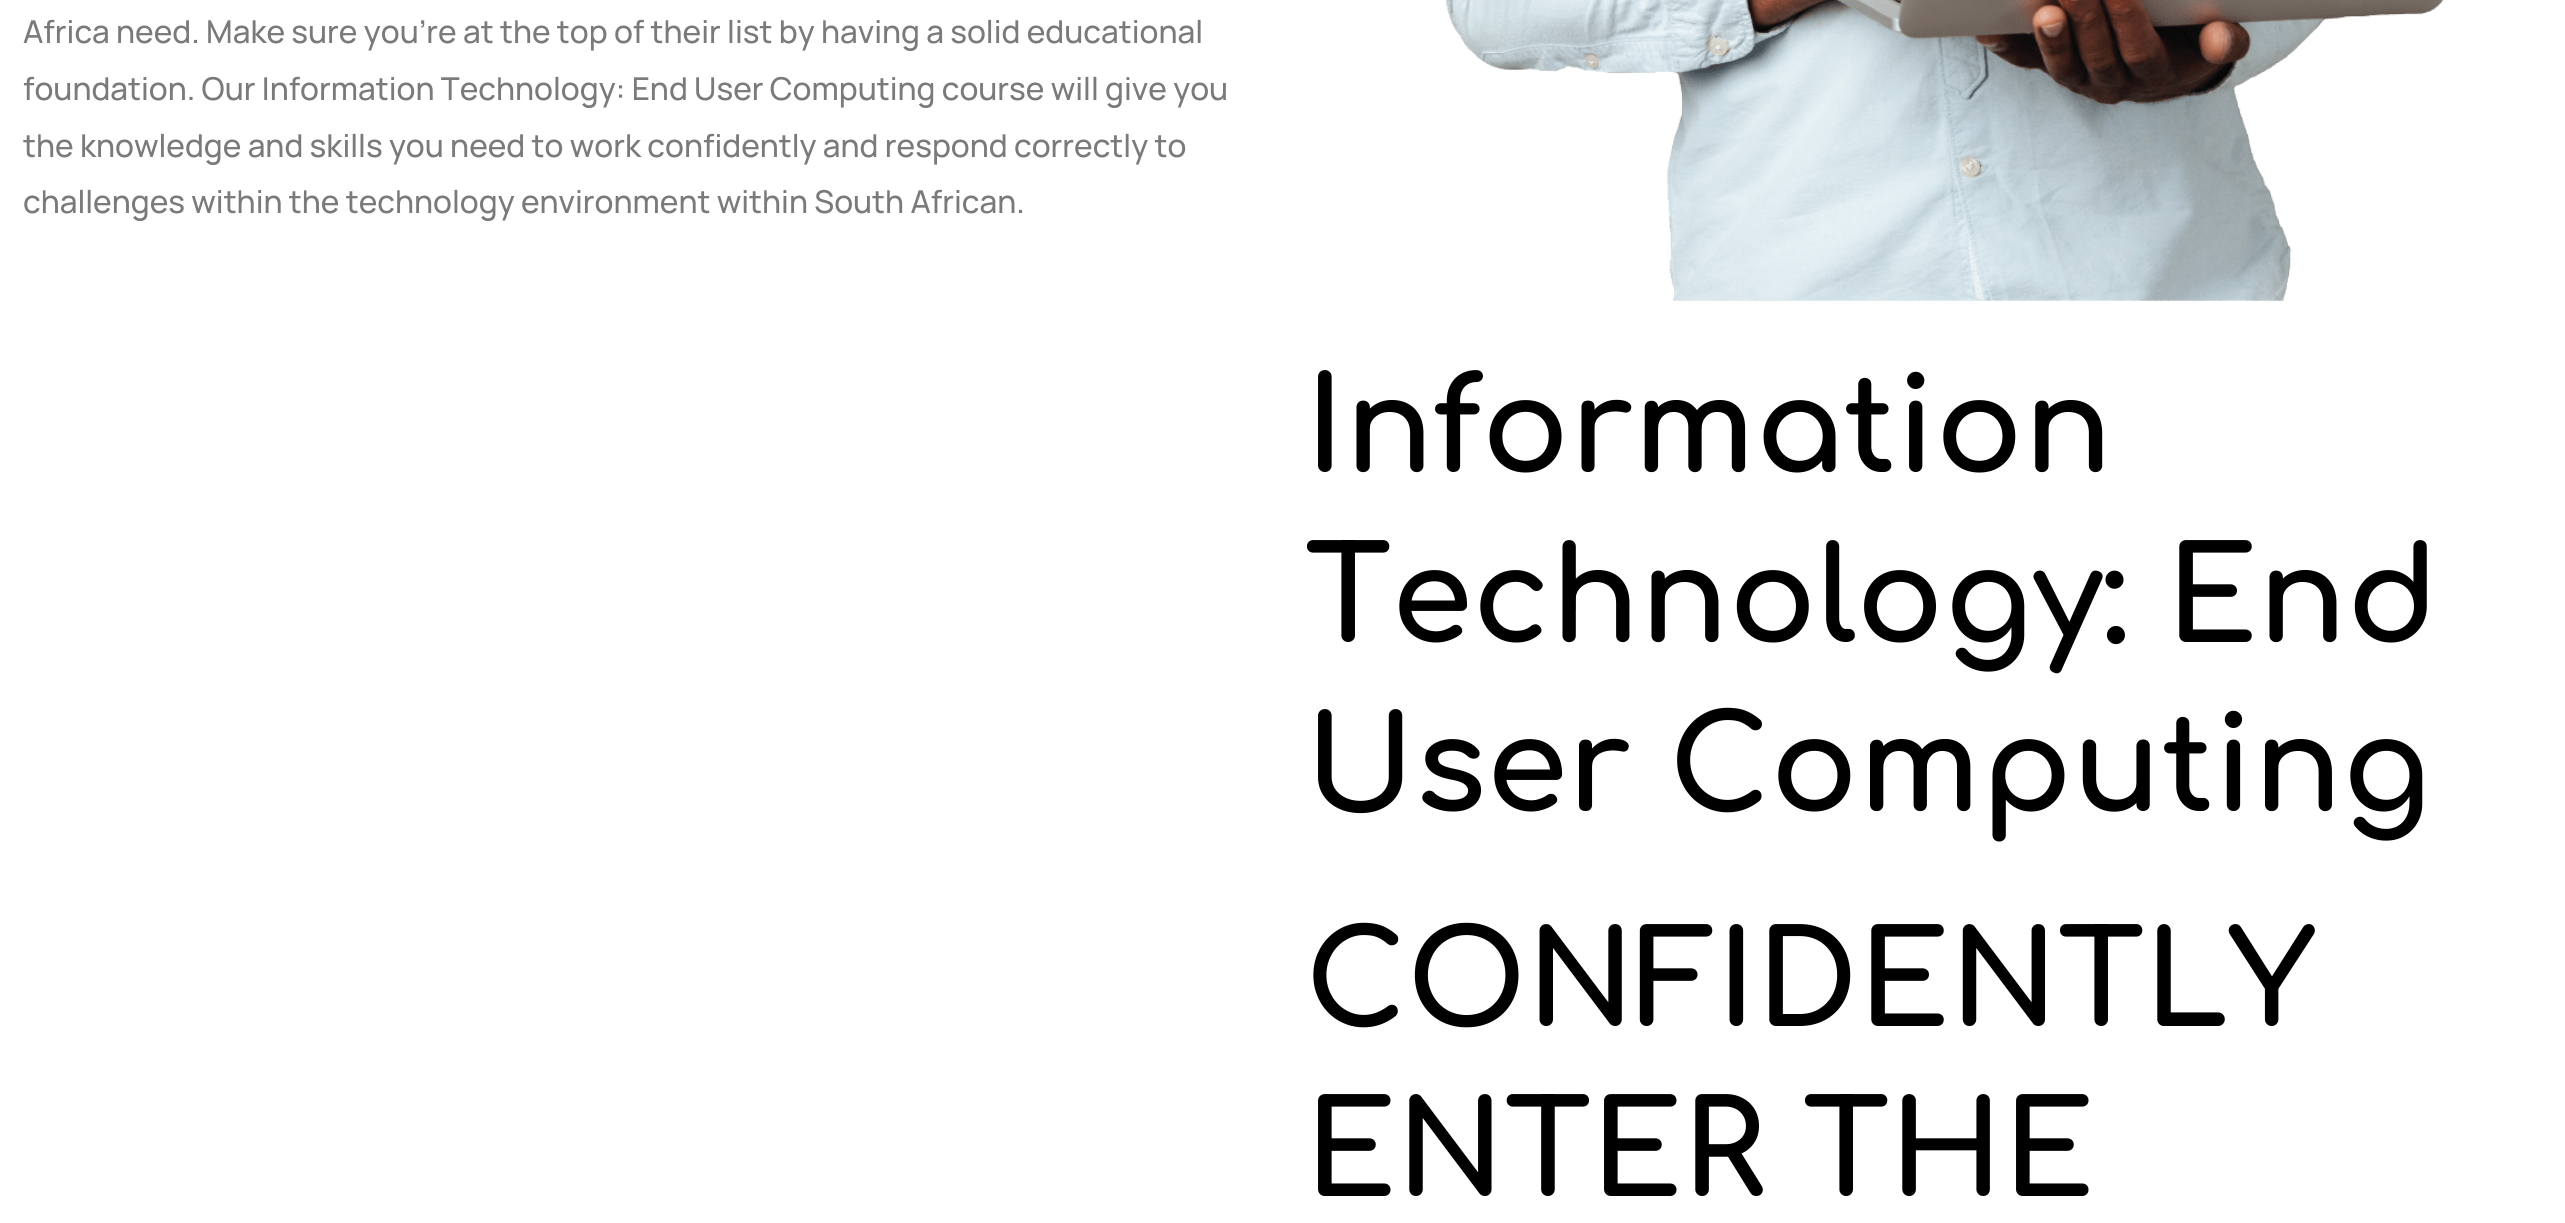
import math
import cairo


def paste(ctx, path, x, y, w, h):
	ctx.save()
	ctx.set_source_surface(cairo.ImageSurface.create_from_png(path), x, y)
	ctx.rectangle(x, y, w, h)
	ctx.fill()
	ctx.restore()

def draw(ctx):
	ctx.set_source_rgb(1, 1, 1)
	ctx.paint()
	ctx.select_font_face('Manrope Medium')
	ctx.set_font_size(31.5)
	ctx.set_source_rgb(0.478, 0.478, 0.478)
	for x, y, s in [
		(23, 43, 'Africa need. Make sure you’re at the top of their list by having a solid educational'),
		(23, 100, 'foundation. Our Information Technology: End User Computing course will give you'),
		(23, 157, 'the knowledge and skills you need to work confidently and respond correctly to'),
		(23, 213, 'challenges within the technology environment within South African.'),
	]:
		ctx.move_to(x, y)
		ctx.show_text(s)
	paste(ctx, 'media/1.png', 1446, 0, 998, 301)
	ctx.select_font_face('Comfortaa', cairo.FONT_SLANT_NORMAL, cairo.FONT_WEIGHT_BOLD)
	ctx.set_font_size(130.5)
	ctx.set_source_rgb(0, 0, 0)
	for x, y, s in [
		(1305, 472, 'Information'),
		(1305, 642, 'Technology: End'),
		(1305, 811, 'User Computing'),
		(1305, 1026, 'CONFIDENTLY'),
		(1305, 1196, 'ENTER THE'),
	]:
		ctx.move_to(x, y)
		ctx.show_text(s)


surface = cairo.ImageSurface(cairo.FORMAT_RGB24, 2565, 1223)
ctx = cairo.Context(surface)
options = cairo.FontOptions()
options.set_hint_metrics(cairo.HINT_METRICS_OFF)
options.set_hint_style(cairo.HINT_STYLE_NONE)
ctx.set_font_options(options)
ctx.set_miter_limit(4)
draw(ctx)
surface.write_to_png('image.png')
